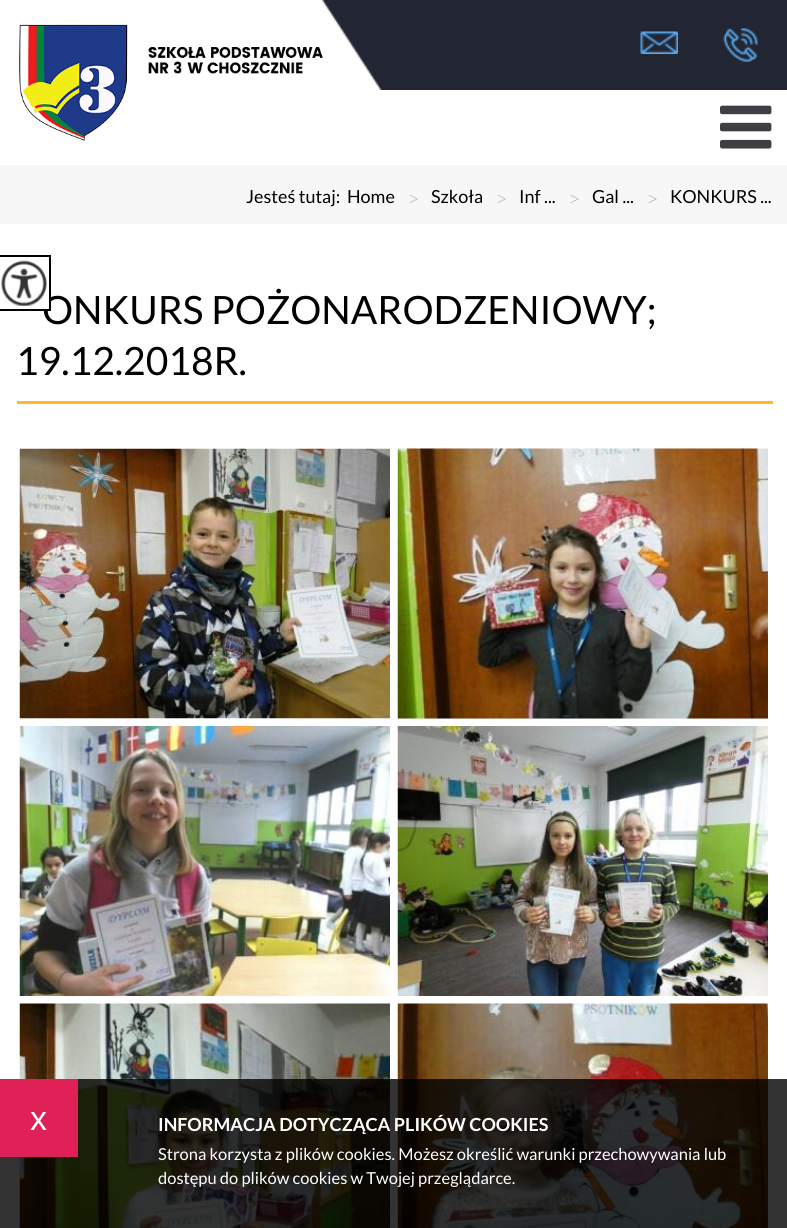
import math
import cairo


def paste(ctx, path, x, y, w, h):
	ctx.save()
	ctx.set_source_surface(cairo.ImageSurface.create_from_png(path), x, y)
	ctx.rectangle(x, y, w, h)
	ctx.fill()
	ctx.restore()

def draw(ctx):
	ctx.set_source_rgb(1, 1, 1)
	ctx.paint()
	paste(ctx, 'media/1.png', 322, 0, 465, 90)
	paste(ctx, 'media/2.png', 19, 24, 304, 117)
	paste(ctx, 'media/3.png', 640, 31, 38, 23)
	paste(ctx, 'media/4.png', 723, 27, 35, 36)
	paste(ctx, 'media/5.png', 720, 105, 52, 44)
	ctx.set_source_rgb(0.965, 0.965, 0.965)
	ctx.rectangle(0, 165, 787, 59)
	ctx.fill()
	ctx.select_font_face('Lato')
	ctx.set_font_size(18)
	ctx.set_source_rgb(0, 0, 0)
	ctx.move_to(246, 203)
	ctx.show_text('Jesteś tutaj:')
	ctx.move_to(347, 203)
	ctx.show_text('Home')
	ctx.select_font_face('Lato Thin')
	ctx.set_font_size(21)
	ctx.move_to(407, 206)
	ctx.show_text('>')
	ctx.select_font_face('Lato')
	ctx.set_font_size(18)
	ctx.move_to(431, 203)
	ctx.show_text('Szkoła')
	ctx.select_font_face('Lato Thin')
	ctx.set_font_size(21)
	ctx.move_to(495, 206)
	ctx.show_text('>')
	ctx.select_font_face('Lato')
	ctx.set_font_size(18)
	ctx.move_to(519, 203)
	ctx.show_text('Inf ...')
	ctx.select_font_face('Lato Thin')
	ctx.set_font_size(21)
	ctx.move_to(568, 206)
	ctx.show_text('>')
	ctx.select_font_face('Lato')
	ctx.set_font_size(18)
	ctx.move_to(592, 203)
	ctx.show_text('Gal ...')
	ctx.select_font_face('Lato Thin')
	ctx.set_font_size(21)
	ctx.move_to(646, 206)
	ctx.show_text('>')
	ctx.select_font_face('Lato')
	ctx.set_font_size(18)
	ctx.move_to(670, 203)
	ctx.show_text('KONKURS ...')
	ctx.set_font_size(39)
	ctx.move_to(42, 324)
	ctx.show_text('ONKURS POŻONARODZENIOWY;')
	ctx.set_source_rgb(1, 1, 1)
	ctx.rectangle(44, 298, 5, 11)
	ctx.fill()
	ctx.rectangle(-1, 256, 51, 54)
	ctx.set_source_rgb(0, 0, 0)
	ctx.stroke()
	paste(ctx, 'media/6.png', 1, 260, 46, 46)
	ctx.set_source_rgb(0.996, 0.722, 0.161)
	ctx.rectangle(17, 401, 756, 3)
	ctx.fill()
	ctx.set_source_rgb(0, 0, 0)
	ctx.move_to(16, 375)
	ctx.show_text('19.12.2018R.')
	paste(ctx, 'media/7.png', 19, 448, 371, 271)
	ctx.set_source_rgb(0.957, 0.957, 0.957)
	ctx.rectangle(398, 718, 370, 1)
	ctx.fill()
	paste(ctx, 'media/8.png', 397, 448, 371, 271)
	paste(ctx, 'media/9.png', 19, 726, 371, 270)
	paste(ctx, 'media/10.png', 397, 726, 371, 270)
	paste(ctx, 'media/11.png', 19, 1003, 371, 225)
	paste(ctx, 'media/12.png', 397, 1003, 371, 225)
	ctx.set_source_rgba(0, 0, 0, 0.8)
	ctx.rectangle(0, 1079, 787, 149)
	ctx.fill()
	ctx.set_source_rgb(0.875, 0.129, 0.341)
	ctx.rectangle(0, 1079, 78, 78)
	ctx.fill()
	ctx.select_font_face('Liberation Sans')
	ctx.set_font_size(34)
	ctx.set_source_rgb(1, 1, 1)
	ctx.move_to(30, 1130)
	ctx.show_text('x')
	ctx.select_font_face('Lato', cairo.FONT_SLANT_NORMAL, cairo.FONT_WEIGHT_BOLD)
	ctx.set_font_size(18)
	ctx.move_to(158, 1131)
	ctx.show_text('INFORMACJA DOTYCZĄCA PLIKÓW COOKIES')
	ctx.select_font_face('Lato')
	ctx.set_font_size(16.5)
	ctx.move_to(158, 1160)
	ctx.show_text('Strona korzysta z plików cookies. Możesz określić warunki przechowywania lub')
	ctx.move_to(158, 1184)
	ctx.show_text('dostępu do plików cookies w Twojej przeglądarce.')


surface = cairo.ImageSurface(cairo.FORMAT_RGB24, 787, 1228)
ctx = cairo.Context(surface)
options = cairo.FontOptions()
options.set_hint_metrics(cairo.HINT_METRICS_OFF)
options.set_hint_style(cairo.HINT_STYLE_NONE)
ctx.set_font_options(options)
ctx.set_miter_limit(4)
draw(ctx)
surface.write_to_png('image.png')
